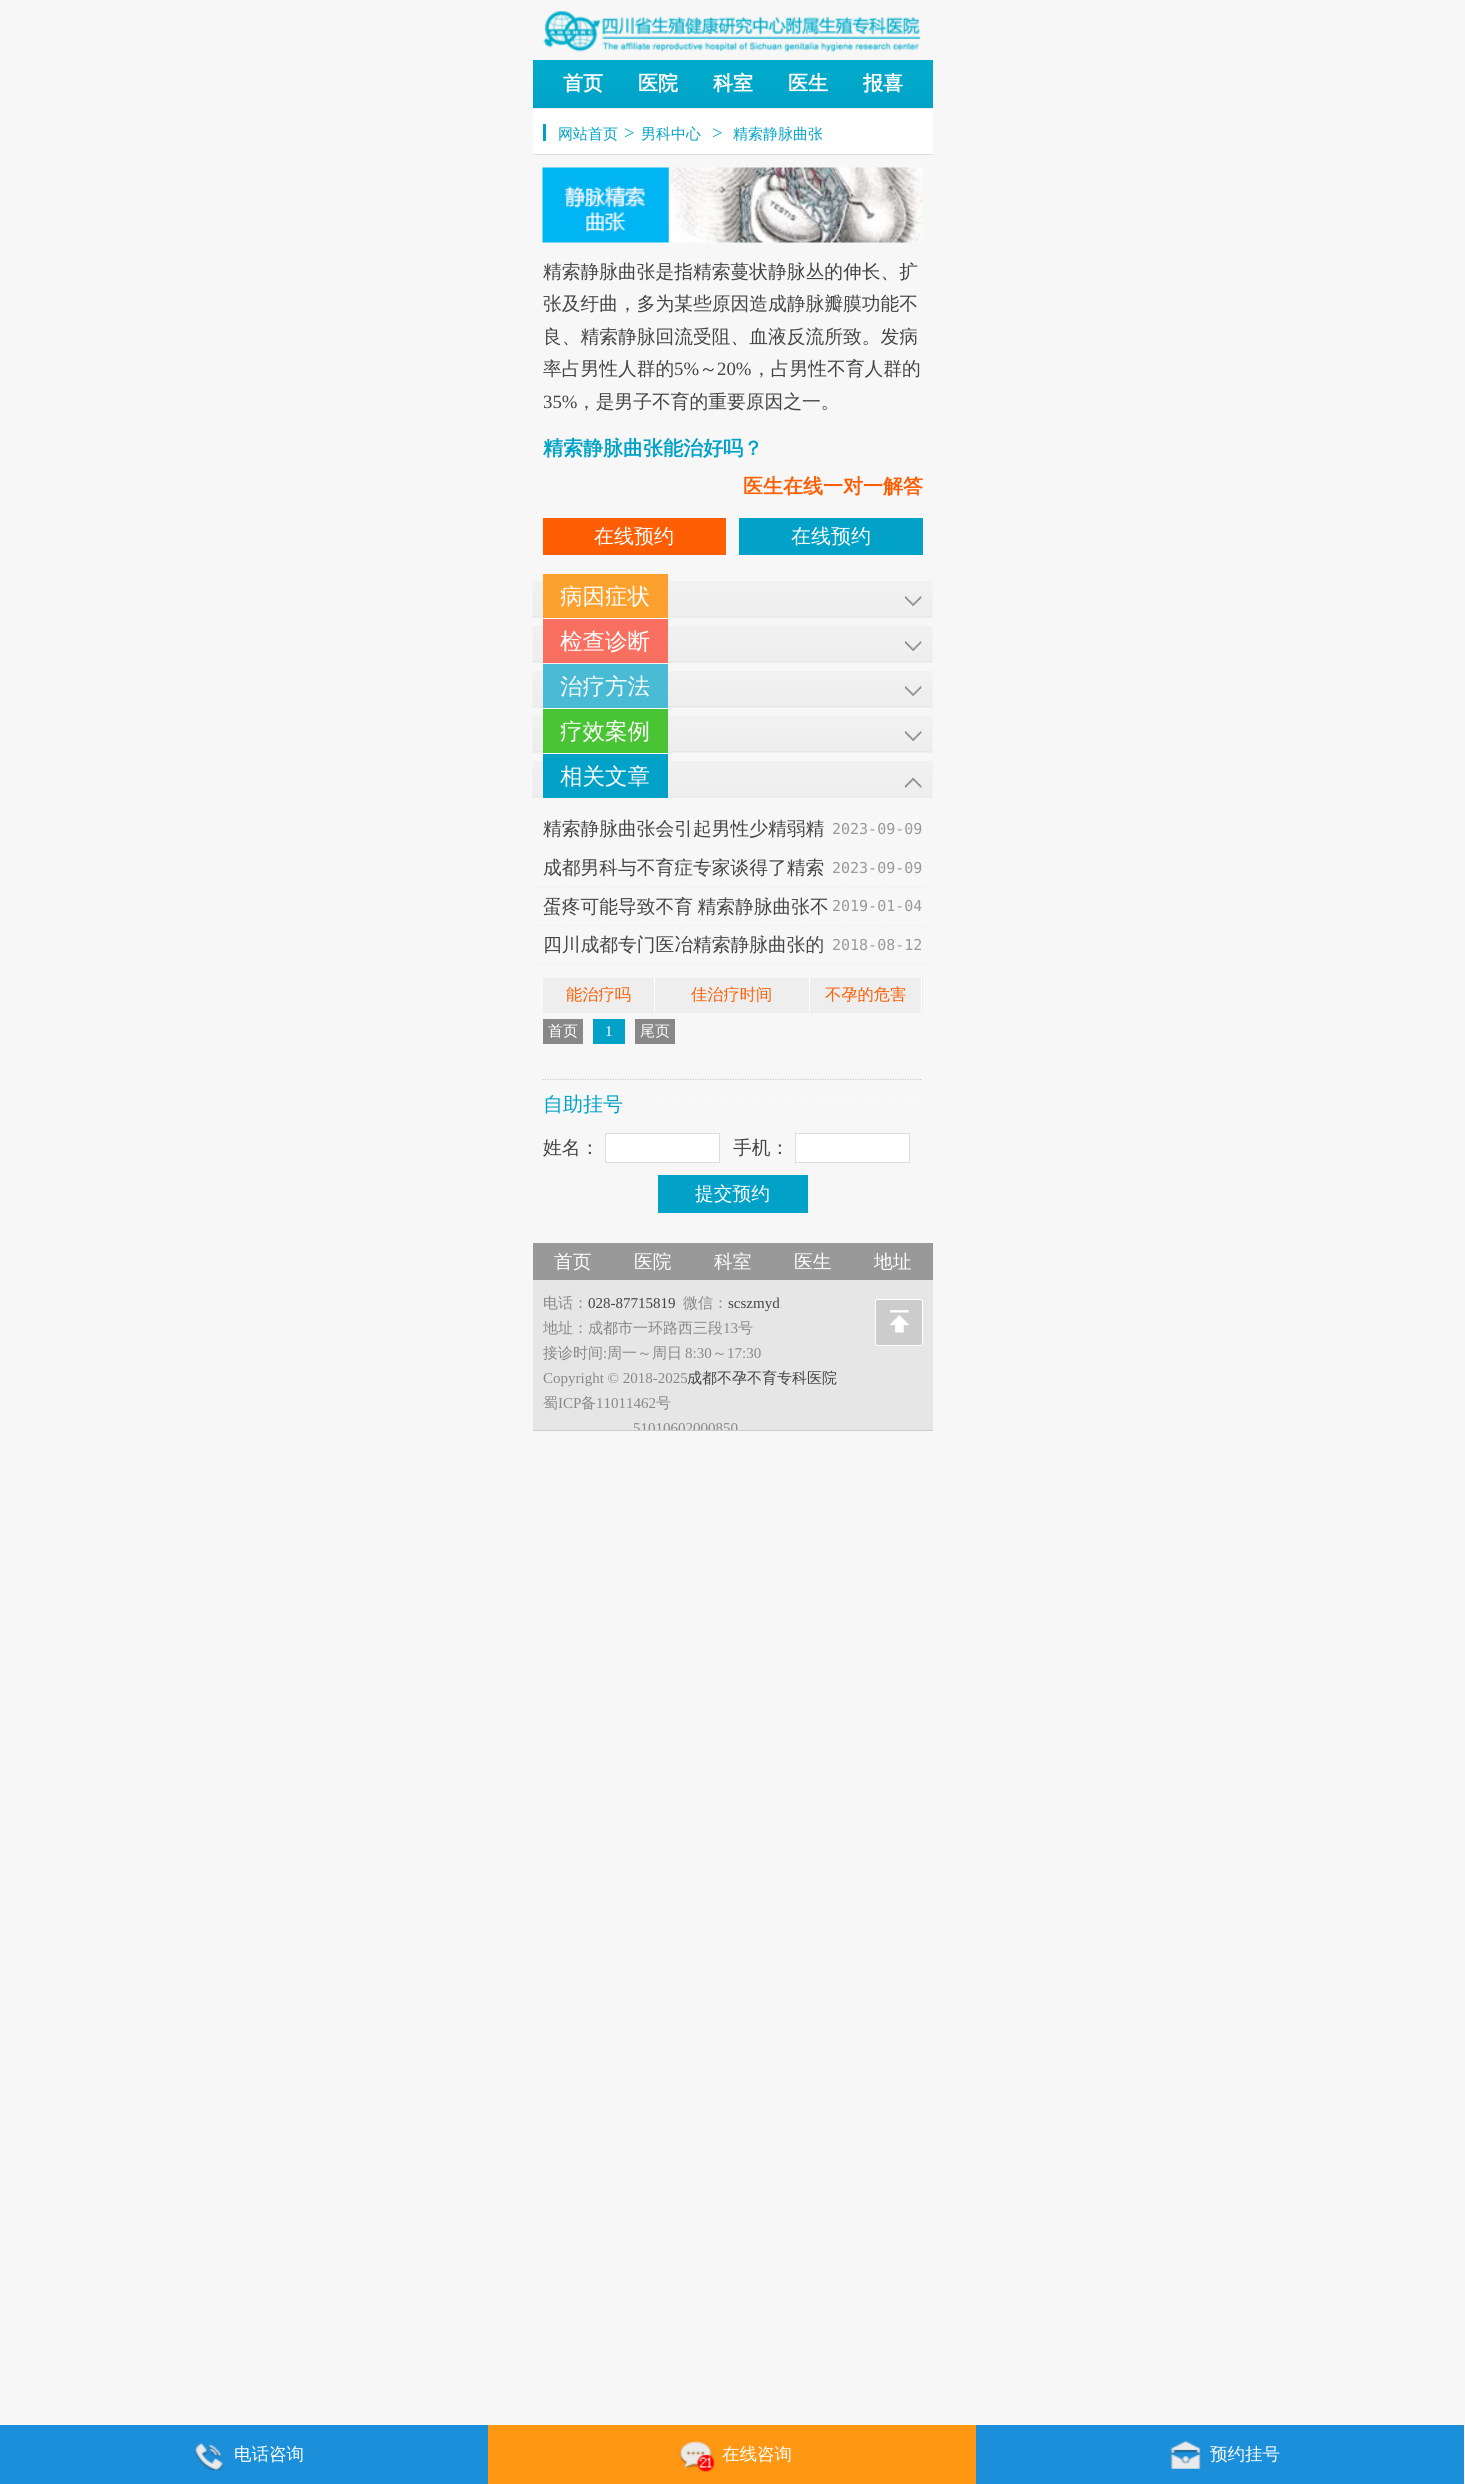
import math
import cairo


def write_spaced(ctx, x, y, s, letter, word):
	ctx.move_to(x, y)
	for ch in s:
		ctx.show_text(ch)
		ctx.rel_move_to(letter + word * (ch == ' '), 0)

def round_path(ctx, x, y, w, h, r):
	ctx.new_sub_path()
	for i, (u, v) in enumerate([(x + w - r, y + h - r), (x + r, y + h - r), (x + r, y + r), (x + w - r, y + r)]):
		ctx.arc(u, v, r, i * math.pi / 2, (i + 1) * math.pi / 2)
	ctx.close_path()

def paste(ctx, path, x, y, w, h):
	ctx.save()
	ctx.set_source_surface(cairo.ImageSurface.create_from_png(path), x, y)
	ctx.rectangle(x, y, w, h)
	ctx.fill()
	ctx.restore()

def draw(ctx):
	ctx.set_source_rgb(0.965, 0.965, 0.965)
	ctx.paint()
	paste(ctx, 'media/1.png', 543, 11, 378, 41)
	gradient = cairo.LinearGradient(733, 60, 733, 108)
	gradient.add_color_stop_rgba(0, 0, 0.675, 0.796, 1)
	gradient.add_color_stop_rgba(1, 0.008, 0.635, 0.784, 1)
	ctx.set_source(gradient)
	ctx.rectangle(533, 60, 400, 48)
	ctx.fill()
	ctx.set_source_rgb(0.933, 0.933, 0.933)
	ctx.rectangle(533, 108, 400, 1)
	ctx.fill()
	ctx.select_font_face('WenQuanYi Zen Hei', cairo.FONT_SLANT_NORMAL, cairo.FONT_WEIGHT_BOLD)
	ctx.set_font_size(20)
	ctx.set_source_rgb(1, 1, 1)
	for x, y, s in [
		(563, 90, '首页'),
		(638, 90, '医院'),
		(713, 90, '科室'),
		(788, 90, '医生'),
		(863, 90, '报喜'),
	]:
		ctx.move_to(x, y)
		ctx.show_text(s)
	ctx.rectangle(533, 109, 400, 45)
	ctx.fill()
	ctx.set_source_rgb(0.867, 0.867, 0.867)
	ctx.rectangle(533, 154, 400, 1)
	ctx.fill()
	ctx.set_source_rgb(0.008, 0.635, 0.784)
	ctx.rectangle(543, 124, 3, 17)
	ctx.fill()
	ctx.select_font_face('WenQuanYi Zen Hei Medium')
	ctx.set_font_size(15)
	ctx.move_to(558, 139)
	ctx.show_text('网站首页')
	ctx.select_font_face('Liberation Serif')
	ctx.set_font_size(18.75)
	ctx.move_to(624, 139)
	ctx.show_text('>')
	ctx.select_font_face('WenQuanYi Zen Hei Medium')
	ctx.set_font_size(15)
	ctx.move_to(641, 139)
	ctx.show_text('男科中心')
	ctx.select_font_face('Liberation Serif')
	ctx.set_font_size(18.75)
	ctx.move_to(712, 139)
	ctx.show_text('>')
	ctx.select_font_face('WenQuanYi Zen Hei Medium')
	ctx.set_font_size(15)
	ctx.move_to(733, 139)
	ctx.show_text('精索静脉曲张')
	paste(ctx, 'media/2.png', 542, 167, 381, 76)
	ctx.set_font_size(18.75)
	ctx.set_source_rgb(0.267, 0.267, 0.267)
	for x, y, s in [
		(543, 278, '精索静脉曲张是指精索蔓状静脉丛的伸长、扩'),
		(543, 310, '张及纡曲，多为某些原因造成静脉瓣膜功能不'),
		(543, 343, '良、精索静脉回流受阻、血液反流所致。发病'),
		(543, 375, '率占男性人群的'),
	]:
		ctx.move_to(x, y)
		ctx.show_text(s)
	ctx.select_font_face('Liberation Serif')
	ctx.move_to(674, 375)
	ctx.show_text('5%')
	ctx.select_font_face('WenQuanYi Zen Hei Medium')
	ctx.move_to(699, 375)
	ctx.show_text('～')
	ctx.select_font_face('Liberation Serif')
	ctx.move_to(717, 375)
	ctx.show_text('20%')
	ctx.select_font_face('WenQuanYi Zen Hei Medium')
	ctx.move_to(752, 375)
	ctx.show_text('，占男性不育人群的')
	ctx.select_font_face('Liberation Serif')
	ctx.move_to(543, 408)
	ctx.show_text('35%')
	ctx.select_font_face('WenQuanYi Zen Hei Medium')
	ctx.move_to(577, 408)
	ctx.show_text('，是男子不育的重要原因之一。')
	ctx.select_font_face('WenQuanYi Zen Hei', cairo.FONT_SLANT_NORMAL, cairo.FONT_WEIGHT_BOLD)
	ctx.set_font_size(20)
	ctx.set_source_rgb(0.008, 0.635, 0.784)
	ctx.move_to(543, 455)
	ctx.show_text('精索静脉曲张能治好吗？')
	ctx.set_source_rgb(1, 0.369, 0.016)
	ctx.move_to(743, 493)
	ctx.show_text('医生在线一对一解答')
	ctx.rectangle(543, 518, 183, 37)
	ctx.fill()
	ctx.select_font_face('WenQuanYi Zen Hei Medium')
	ctx.set_source_rgb(1, 1, 1)
	ctx.move_to(594, 543)
	ctx.show_text('在线预约')
	ctx.set_source_rgb(0.008, 0.635, 0.784)
	ctx.rectangle(739, 518, 184, 37)
	ctx.fill()
	ctx.set_source_rgb(1, 1, 1)
	ctx.move_to(791, 543)
	ctx.show_text('在线预约')
	paste(ctx, 'media/3.png', 532, 581, 401, 37)
	ctx.set_source_rgb(0.988, 0.627, 0.18)
	ctx.rectangle(543, 574, 125, 44)
	ctx.fill()
	ctx.set_font_size(22.5)
	ctx.set_source_rgb(1, 1, 1)
	ctx.move_to(560, 604)
	ctx.show_text('病因症状')
	paste(ctx, 'media/4.png', 905, 596, 17, 12)
	paste(ctx, 'media/3.png', 532, 626, 401, 37)
	ctx.set_source_rgb(0.976, 0.439, 0.376)
	ctx.rectangle(543, 619, 125, 44)
	ctx.fill()
	ctx.set_source_rgb(1, 1, 1)
	ctx.move_to(560, 649)
	ctx.show_text('检查诊断')
	paste(ctx, 'media/4.png', 905, 641, 17, 12)
	paste(ctx, 'media/3.png', 532, 671, 401, 37)
	ctx.set_source_rgb(0.286, 0.733, 0.831)
	ctx.rectangle(543, 664, 125, 44)
	ctx.fill()
	ctx.set_source_rgb(1, 1, 1)
	ctx.move_to(560, 694)
	ctx.show_text('治疗方法')
	paste(ctx, 'media/4.png', 905, 686, 17, 12)
	paste(ctx, 'media/3.png', 532, 716, 401, 37)
	ctx.set_source_rgb(0.286, 0.769, 0.204)
	ctx.rectangle(543, 709, 125, 44)
	ctx.fill()
	ctx.set_source_rgb(1, 1, 1)
	ctx.move_to(560, 739)
	ctx.show_text('疗效案例')
	paste(ctx, 'media/4.png', 905, 731, 17, 12)
	paste(ctx, 'media/3.png', 532, 761, 401, 37)
	ctx.set_source_rgb(0.008, 0.635, 0.784)
	ctx.rectangle(543, 754, 125, 44)
	ctx.fill()
	ctx.set_source_rgb(1, 1, 1)
	ctx.move_to(560, 784)
	ctx.show_text('相关文章')
	paste(ctx, 'media/5.png', 905, 776, 17, 12)
	ctx.new_path()
	ctx.move_to(532.5, 848)
	ctx.line_to(932.5, 848)
	ctx.set_source_rgb(0.933, 0.933, 0.933)
	ctx.set_line_width(1.2)
	ctx.set_dash([1.25, 1.25])
	ctx.stroke()
	ctx.set_font_size(18.75)
	ctx.set_source_rgb(0.267, 0.267, 0.267)
	ctx.move_to(543, 835)
	ctx.show_text('精索静脉曲张会引起男性少精弱精')
	ctx.select_font_face('DejaVu Sans Mono')
	ctx.set_font_size(15)
	ctx.set_source_rgb(0.6, 0.6, 0.6)
	ctx.move_to(832, 834)
	ctx.show_text('2023-09-09')
	ctx.new_path()
	ctx.move_to(532.5, 887)
	ctx.line_to(932.5, 887)
	ctx.set_source_rgb(0.933, 0.933, 0.933)
	ctx.stroke()
	ctx.select_font_face('WenQuanYi Zen Hei Medium')
	ctx.set_font_size(18.75)
	ctx.set_source_rgb(0.267, 0.267, 0.267)
	ctx.move_to(543, 874)
	ctx.show_text('成都男科与不育症专家谈得了精索')
	ctx.select_font_face('DejaVu Sans Mono')
	ctx.set_font_size(15)
	ctx.set_source_rgb(0.6, 0.6, 0.6)
	ctx.move_to(832, 873)
	ctx.show_text('2023-09-09')
	ctx.new_path()
	ctx.move_to(532.5, 925.5)
	ctx.line_to(932.5, 925.5)
	ctx.set_source_rgb(0.933, 0.933, 0.933)
	ctx.stroke()
	ctx.select_font_face('WenQuanYi Zen Hei Medium')
	ctx.set_font_size(18.75)
	ctx.set_source_rgb(0.267, 0.267, 0.267)
	write_spaced(ctx, 543, 913, '蛋疼可能导致不育 精索静脉曲张不', 0, -1)
	ctx.select_font_face('DejaVu Sans Mono')
	ctx.set_font_size(15)
	ctx.set_source_rgb(0.6, 0.6, 0.6)
	ctx.move_to(832, 911)
	ctx.show_text('2019-01-04')
	ctx.new_path()
	ctx.move_to(532.5, 964.5)
	ctx.line_to(932.5, 964.5)
	ctx.set_source_rgb(0.933, 0.933, 0.933)
	ctx.stroke()
	ctx.select_font_face('WenQuanYi Zen Hei Medium')
	ctx.set_font_size(18.75)
	ctx.set_source_rgb(0.267, 0.267, 0.267)
	ctx.move_to(543, 951)
	ctx.show_text('四川成都专门医冶精索静脉曲张的')
	ctx.select_font_face('DejaVu Sans Mono')
	ctx.set_font_size(15)
	ctx.set_source_rgb(0.6, 0.6, 0.6)
	ctx.move_to(832, 950)
	ctx.show_text('2018-08-12')
	ctx.set_source_rgb(0.933, 0.933, 0.933)
	ctx.rectangle(543, 978, 111, 35)
	ctx.fill()
	ctx.set_source_rgb(1, 1, 1)
	ctx.rectangle(654, 978, 1, 35)
	ctx.fill()
	ctx.select_font_face('WenQuanYi Zen Hei Medium')
	ctx.set_font_size(16.25)
	ctx.set_source_rgb(1, 0.369, 0.016)
	ctx.move_to(566, 1000)
	ctx.show_text('能治疗吗')
	ctx.set_source_rgb(0.933, 0.933, 0.933)
	ctx.rectangle(655, 978, 154, 35)
	ctx.fill()
	ctx.set_source_rgb(1, 1, 1)
	ctx.rectangle(809, 978, 1, 35)
	ctx.fill()
	ctx.set_source_rgb(1, 0.369, 0.016)
	ctx.move_to(691, 1000)
	ctx.show_text('佳治疗时间')
	ctx.set_source_rgb(0.933, 0.933, 0.933)
	ctx.rectangle(810, 978, 113, 35)
	ctx.fill()
	ctx.set_source_rgb(1, 1, 1)
	ctx.rectangle(921, 978, 1, 35)
	ctx.fill()
	ctx.set_source_rgb(1, 0.369, 0.016)
	ctx.move_to(825, 1000)
	ctx.show_text('不孕的危害')
	ctx.set_source_rgb(0.533, 0.533, 0.533)
	ctx.rectangle(543, 1019, 40, 25)
	ctx.fill()
	ctx.set_font_size(15)
	ctx.set_source_rgb(1, 1, 1)
	ctx.move_to(548, 1036)
	ctx.show_text('首页')
	ctx.set_source_rgb(0.008, 0.635, 0.784)
	ctx.rectangle(593, 1019, 32, 25)
	ctx.fill()
	ctx.select_font_face('Liberation Serif')
	ctx.set_source_rgb(1, 1, 1)
	ctx.move_to(605, 1036)
	ctx.show_text('1')
	ctx.set_source_rgb(0.533, 0.533, 0.533)
	ctx.rectangle(635, 1019, 40, 25)
	ctx.fill()
	ctx.select_font_face('WenQuanYi Zen Hei Medium')
	ctx.set_source_rgb(1, 1, 1)
	ctx.move_to(640, 1036)
	ctx.show_text('尾页')
	ctx.new_path()
	ctx.move_to(542.5, 1079.5)
	ctx.line_to(922.5, 1079.5)
	ctx.set_source_rgb(0.8, 0.8, 0.8)
	ctx.stroke()
	paste(ctx, 'media/6.png', 653, 1102, 269, 2)
	ctx.set_font_size(20)
	ctx.set_source_rgb(0.008, 0.635, 0.784)
	ctx.move_to(543, 1111)
	ctx.show_text('自助挂号')
	ctx.set_font_size(18.75)
	ctx.set_source_rgb(0.267, 0.267, 0.267)
	ctx.move_to(543, 1154)
	ctx.show_text('姓名：')
	ctx.set_source_rgb(1, 1, 1)
	ctx.rectangle(605.5, 1133.5, 114, 29)
	ctx.fill_preserve()
	ctx.set_source_rgb(0.867, 0.867, 0.867)
	ctx.set_line_width(1)
	ctx.set_dash([])
	ctx.stroke()
	ctx.set_source_rgb(0.267, 0.267, 0.267)
	ctx.move_to(733, 1154)
	ctx.show_text('手机：')
	ctx.set_source_rgb(1, 1, 1)
	ctx.rectangle(795.5, 1133.5, 114, 29)
	ctx.fill_preserve()
	ctx.set_source_rgb(0.867, 0.867, 0.867)
	ctx.stroke()
	ctx.set_source_rgb(0.008, 0.635, 0.784)
	ctx.rectangle(658, 1175, 150, 38)
	ctx.fill()
	ctx.set_source_rgb(1, 1, 1)
	ctx.move_to(695, 1200)
	ctx.show_text('提交预约')
	ctx.set_source_rgb(0.6, 0.6, 0.6)
	ctx.rectangle(533, 1243, 400, 37)
	ctx.fill()
	ctx.set_source_rgb(1, 1, 1)
	for x, y, s in [
		(554, 1268, '首页'),
		(634, 1268, '医院'),
		(714, 1268, '科室'),
		(794, 1268, '医生'),
		(874, 1268, '地址'),
	]:
		ctx.move_to(x, y)
		ctx.show_text(s)
	ctx.set_source_rgb(0.902, 0.902, 0.902)
	ctx.rectangle(533, 1280, 400, 150)
	ctx.fill()
	ctx.set_source_rgb(0.8, 0.8, 0.8)
	ctx.rectangle(533, 1430, 400, 1)
	ctx.fill()
	ctx.set_font_size(15)
	ctx.set_source_rgb(0.533, 0.533, 0.533)
	ctx.move_to(543, 1308)
	ctx.show_text('电话：')
	ctx.select_font_face('Liberation Serif')
	ctx.set_source_rgb(0.267, 0.267, 0.267)
	ctx.move_to(588, 1308)
	ctx.show_text('028-87715819')
	ctx.select_font_face('WenQuanYi Zen Hei Medium')
	ctx.set_source_rgb(0.533, 0.533, 0.533)
	ctx.move_to(683, 1308)
	ctx.show_text('微信：')
	ctx.select_font_face('Liberation Serif')
	ctx.set_source_rgb(0.267, 0.267, 0.267)
	ctx.move_to(728, 1308)
	ctx.show_text('scszmyd')
	ctx.set_source_rgb(0.8, 0.8, 0.8)
	round_path(ctx, 875.5, 1299.5, 47, 46, 2)
	ctx.fill_preserve()
	ctx.set_source_rgb(1, 1, 1)
	ctx.stroke()
	paste(ctx, 'media/7.png', 890, 1310, 19, 23)
	ctx.select_font_face('WenQuanYi Zen Hei Medium')
	ctx.set_source_rgb(0.533, 0.533, 0.533)
	ctx.move_to(543, 1333)
	ctx.show_text('地址：成都市一环路西三段')
	ctx.select_font_face('Liberation Serif')
	ctx.move_to(723, 1333)
	ctx.show_text('13')
	ctx.select_font_face('WenQuanYi Zen Hei Medium')
	ctx.move_to(738, 1333)
	ctx.show_text('号')
	ctx.move_to(543, 1358)
	ctx.show_text('接诊时间')
	ctx.select_font_face('Liberation Serif')
	ctx.move_to(603, 1358)
	ctx.show_text(':')
	ctx.select_font_face('WenQuanYi Zen Hei Medium')
	ctx.move_to(607, 1358)
	ctx.show_text('周一～周日')
	ctx.select_font_face('Liberation Serif')
	ctx.move_to(685, 1358)
	ctx.show_text('8:30')
	ctx.select_font_face('WenQuanYi Zen Hei Medium')
	ctx.move_to(712, 1358)
	ctx.show_text('～')
	ctx.select_font_face('Liberation Serif')
	ctx.move_to(727, 1358)
	ctx.show_text('17:30')
	ctx.move_to(543, 1383)
	ctx.show_text('Copyright © 2018-2025')
	ctx.select_font_face('WenQuanYi Zen Hei Medium')
	ctx.set_source_rgb(0.267, 0.267, 0.267)
	ctx.move_to(687, 1383)
	ctx.show_text('成都不孕不育专科医院')
	ctx.set_source_rgb(0.533, 0.533, 0.533)
	ctx.move_to(543, 1408)
	ctx.show_text('蜀')
	ctx.select_font_face('Liberation Serif')
	ctx.move_to(558, 1408)
	ctx.show_text('ICP')
	ctx.select_font_face('WenQuanYi Zen Hei Medium')
	ctx.move_to(581, 1408)
	ctx.show_text('备')
	ctx.select_font_face('Liberation Serif')
	ctx.move_to(596, 1408)
	ctx.show_text('11011462')
	ctx.select_font_face('WenQuanYi Zen Hei Medium')
	ctx.move_to(656, 1408)
	ctx.show_text('号')
	ctx.save()
	ctx.rectangle(533, 1280, 400, 150)
	ctx.clip()
	ctx.select_font_face('Liberation Serif')
	ctx.move_to(633, 1433)
	ctx.show_text('51010602000850')
	ctx.restore()
	ctx.set_source_rgb(0.11, 0.561, 0.855)
	ctx.rectangle(0, 2425, 488, 59)
	ctx.fill()
	paste(ctx, 'media/8.png', 194, 2443, 30, 28)
	ctx.set_font_size(17.5)
	ctx.set_source_rgb(1, 1, 1)
	ctx.move_to(234, 2460)
	ctx.show_text('电话咨询')
	ctx.set_source_rgb(1, 0.592, 0.075)
	ctx.rectangle(488, 2425, 488, 59)
	ctx.fill()
	paste(ctx, 'media/9.png', 679, 2441, 36, 31)
	ctx.set_source_rgb(1, 1, 1)
	ctx.move_to(722, 2460)
	ctx.show_text('在线咨询')
	ctx.set_source_rgb(0.11, 0.561, 0.855)
	ctx.rectangle(976, 2425, 488, 59)
	ctx.fill()
	paste(ctx, 'media/10.png', 1170, 2441, 32, 28)
	ctx.set_source_rgb(1, 1, 1)
	ctx.move_to(1210, 2460)
	ctx.show_text('预约挂号')


surface = cairo.ImageSurface(cairo.FORMAT_RGB24, 1465, 2484)
ctx = cairo.Context(surface)
options = cairo.FontOptions()
options.set_hint_metrics(cairo.HINT_METRICS_OFF)
options.set_hint_style(cairo.HINT_STYLE_NONE)
ctx.set_font_options(options)
ctx.set_miter_limit(4)
draw(ctx)
surface.write_to_png('image.png')
